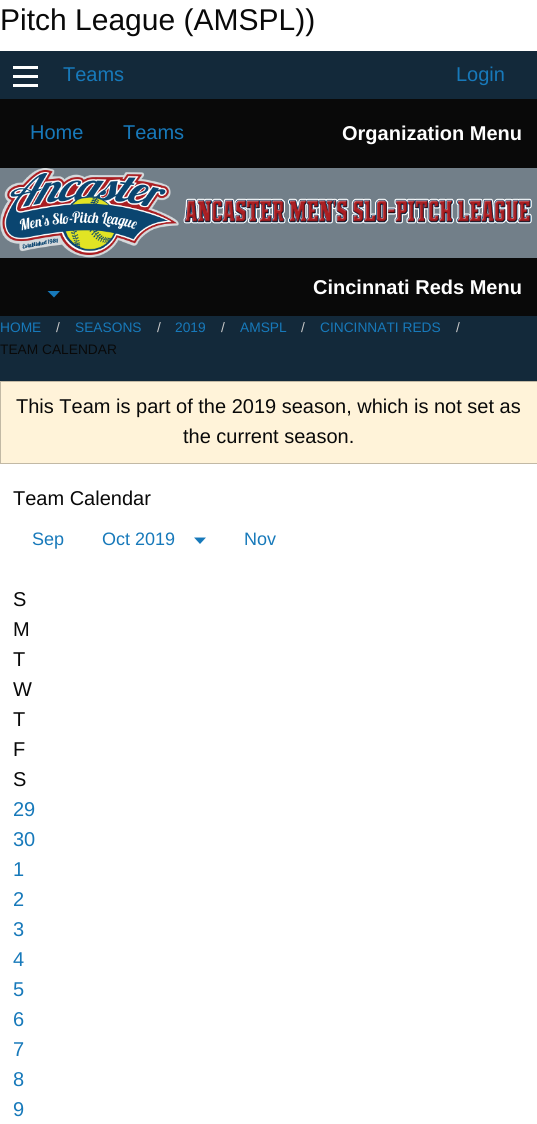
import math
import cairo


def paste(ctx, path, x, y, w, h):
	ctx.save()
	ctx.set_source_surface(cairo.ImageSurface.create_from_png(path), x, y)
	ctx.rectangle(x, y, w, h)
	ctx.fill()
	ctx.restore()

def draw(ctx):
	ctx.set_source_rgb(1, 1, 1)
	ctx.paint()
	ctx.select_font_face('Liberation Sans')
	ctx.set_font_size(30)
	ctx.set_source_rgb(0.039, 0.039, 0.039)
	ctx.move_to(0, 30)
	ctx.show_text('Pitch League (AMSPL))')
	ctx.set_source_rgb(0.078, 0.161, 0.227)
	ctx.rectangle(0, 51, 537, 330)
	ctx.fill()
	ctx.set_source_rgb(0.996, 0.996, 0.996)
	ctx.rectangle(13, 84, 25, 3)
	ctx.rectangle(13, 75, 25, 3)
	ctx.rectangle(13, 66, 25, 3)
	ctx.fill()
	ctx.set_font_size(20)
	ctx.set_source_rgb(0.09, 0.475, 0.729)
	ctx.move_to(63, 81)
	ctx.show_text('Teams')
	ctx.move_to(456, 81)
	ctx.show_text('Login')
	ctx.set_source_rgb(0.039, 0.039, 0.039)
	ctx.rectangle(0, 99, 537, 69)
	ctx.fill()
	ctx.set_source_rgb(0.09, 0.475, 0.729)
	ctx.move_to(30, 139)
	ctx.show_text('Home')
	ctx.move_to(123, 139)
	ctx.show_text('Teams')
	ctx.select_font_face('Liberation Sans', cairo.FONT_SLANT_NORMAL, cairo.FONT_WEIGHT_BOLD)
	ctx.set_source_rgb(0.996, 0.996, 0.996)
	ctx.move_to(342, 140)
	ctx.show_text('Organization Menu')
	ctx.set_source_rgb(0.447, 0.498, 0.537)
	ctx.rectangle(0, 168, 537, 90)
	ctx.fill()
	paste(ctx, 'media/1.png', 0, 168, 179, 90)
	paste(ctx, 'media/2.png', 183, 198, 349, 26)
	ctx.set_source_rgb(0.039, 0.039, 0.039)
	ctx.rectangle(0, 258, 537, 58)
	ctx.fill()
	ctx.set_source_rgb(0.09, 0.475, 0.729)
	ctx.new_path()
	ctx.move_to(47.5, 291)
	ctx.line_to(60, 291)
	ctx.line_to(54, 297.5)
	ctx.close_path()
	ctx.fill()
	ctx.set_source_rgb(0.996, 0.996, 0.996)
	ctx.move_to(313, 294)
	ctx.show_text('Cincinnati Reds Menu')
	ctx.select_font_face('Liberation Sans')
	ctx.set_font_size(13.75)
	ctx.set_source_rgb(0.09, 0.475, 0.729)
	ctx.move_to(0, 332)
	ctx.show_text('HOME')
	ctx.set_source_rgb(0.792, 0.792, 0.792)
	ctx.move_to(56, 332)
	ctx.show_text('/')
	ctx.set_source_rgb(0.09, 0.475, 0.729)
	ctx.move_to(75, 332)
	ctx.show_text('SEASONS')
	ctx.set_source_rgb(0.792, 0.792, 0.792)
	ctx.move_to(157, 332)
	ctx.show_text('/')
	ctx.set_source_rgb(0.09, 0.475, 0.729)
	ctx.move_to(175, 332)
	ctx.show_text('2019')
	ctx.set_source_rgb(0.792, 0.792, 0.792)
	ctx.move_to(221, 332)
	ctx.show_text('/')
	ctx.set_source_rgb(0.09, 0.475, 0.729)
	ctx.move_to(240, 332)
	ctx.show_text('AMSPL')
	ctx.set_source_rgb(0.792, 0.792, 0.792)
	ctx.move_to(301, 332)
	ctx.show_text('/')
	ctx.set_source_rgb(0.09, 0.475, 0.729)
	ctx.move_to(320, 332)
	ctx.show_text('CINCINNATI REDS')
	ctx.set_source_rgb(0.792, 0.792, 0.792)
	ctx.move_to(456, 332)
	ctx.show_text('/')
	ctx.set_source_rgb(0.039, 0.039, 0.039)
	ctx.move_to(0, 354)
	ctx.show_text('TEAM CALENDAR')
	ctx.set_source_rgb(1, 0.953, 0.851)
	ctx.rectangle(0.5, 381.5, 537, 82)
	ctx.fill_preserve()
	ctx.set_source_rgb(0.761, 0.725, 0.647)
	ctx.set_line_width(1)
	ctx.stroke()
	ctx.set_font_size(20)
	ctx.set_source_rgb(0.039, 0.039, 0.039)
	for x, y, s in [
		(16, 413, 'This Team is part of the 2019 season, which is not set as'),
		(183, 443, 'the current season.'),
		(13, 505, 'Team Calendar'),
	]:
		ctx.move_to(x, y)
		ctx.show_text(s)
	ctx.set_font_size(18)
	ctx.set_source_rgb(0.09, 0.475, 0.729)
	ctx.move_to(32, 545)
	ctx.show_text('Sep')
	ctx.move_to(102, 545)
	ctx.show_text('Oct 2019')
	ctx.new_path()
	ctx.move_to(194, 537.5)
	ctx.line_to(206, 537.5)
	ctx.line_to(200, 544)
	ctx.close_path()
	ctx.fill()
	ctx.move_to(244, 545)
	ctx.show_text('Nov')
	ctx.set_font_size(20)
	ctx.set_source_rgb(0.039, 0.039, 0.039)
	for x, y, s in [
		(13, 606, 'S'),
		(13, 636, 'M'),
		(13, 666, 'T'),
		(13, 696, 'W'),
		(13, 726, 'T'),
		(13, 756, 'F'),
		(13, 786, 'S'),
	]:
		ctx.move_to(x, y)
		ctx.show_text(s)
	ctx.set_source_rgb(0.09, 0.475, 0.729)
	for x, y, s in [
		(13, 816, '29'),
		(13, 846, '30'),
		(13, 876, '1'),
		(13, 906, '2'),
		(13, 936, '3'),
		(13, 966, '4'),
		(13, 996, '5'),
		(13, 1026, '6'),
		(13, 1056, '7'),
		(13, 1086, '8'),
		(13, 1116, '9'),
	]:
		ctx.move_to(x, y)
		ctx.show_text(s)


surface = cairo.ImageSurface(cairo.FORMAT_RGB24, 537, 1124)
ctx = cairo.Context(surface)
options = cairo.FontOptions()
options.set_hint_metrics(cairo.HINT_METRICS_OFF)
options.set_hint_style(cairo.HINT_STYLE_NONE)
ctx.set_font_options(options)
ctx.set_miter_limit(4)
draw(ctx)
surface.write_to_png('image.png')
